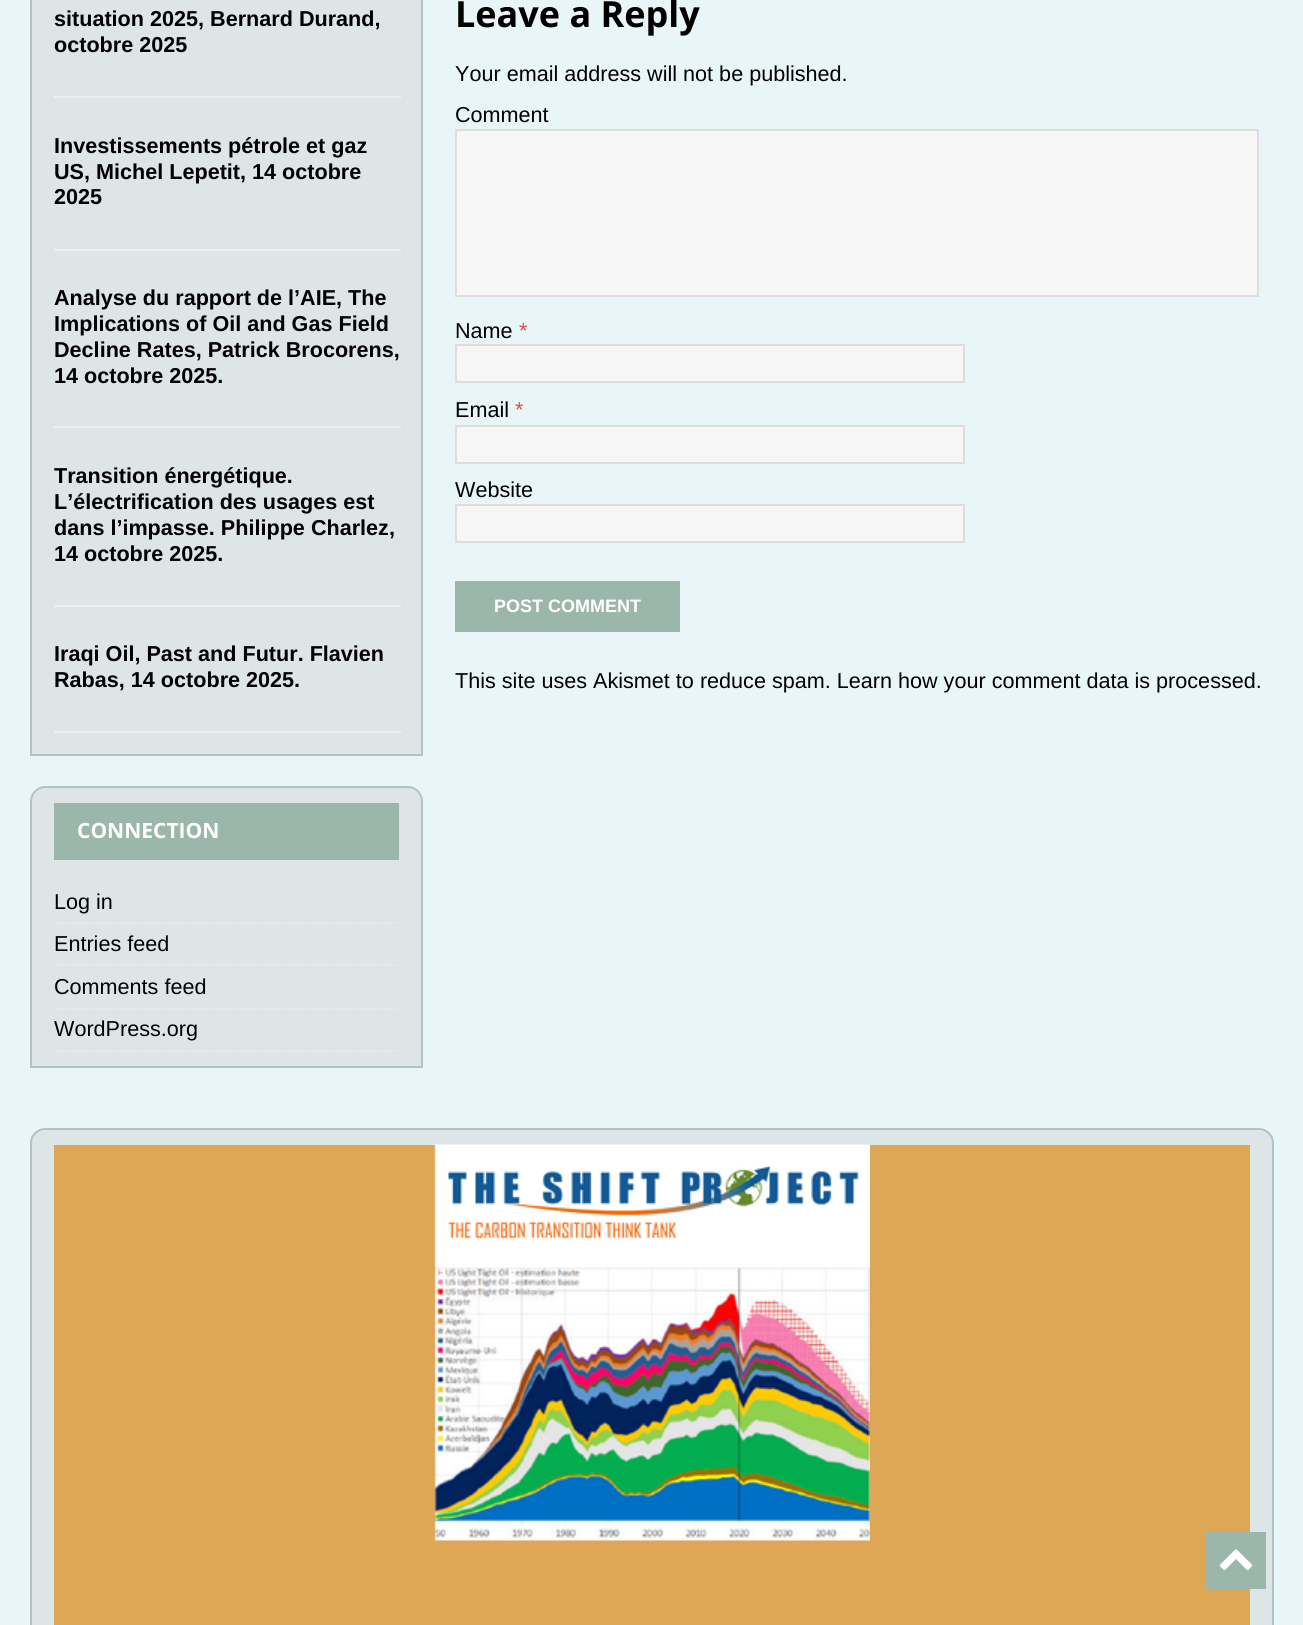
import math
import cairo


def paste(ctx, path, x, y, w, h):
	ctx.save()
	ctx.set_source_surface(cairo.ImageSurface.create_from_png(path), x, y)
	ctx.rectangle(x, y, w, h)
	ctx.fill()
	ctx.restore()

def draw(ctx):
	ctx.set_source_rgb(0.914, 0.961, 0.965)
	ctx.paint()
	ctx.set_source_rgb(0.871, 0.898, 0.906)
	ctx.rectangle(31, -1, 391, 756)
	ctx.fill_preserve()
	ctx.set_source_rgb(0.698, 0.765, 0.784)
	ctx.stroke()
	ctx.set_source_rgb(0.933, 0.933, 0.933)
	ctx.rectangle(54, 96, 347, 2)
	ctx.fill()
	ctx.select_font_face('Liberation Sans', cairo.FONT_SLANT_NORMAL, cairo.FONT_WEIGHT_BOLD)
	ctx.set_font_size(21.6)
	ctx.set_source_rgb(0, 0, 0)
	ctx.move_to(54, 26)
	ctx.show_text('situation 2025, Bernard Durand,')
	ctx.move_to(54, 52)
	ctx.show_text('octobre 2025')
	ctx.set_source_rgb(0.933, 0.933, 0.933)
	ctx.rectangle(54, 249, 347, 2)
	ctx.fill()
	ctx.set_source_rgb(0, 0, 0)
	for x, y, s in [
		(54, 153, 'Investissements pétrole et gaz'),
		(54, 179, 'US, Michel Lepetit, 14 octobre'),
		(54, 204, '2025'),
	]:
		ctx.move_to(x, y)
		ctx.show_text(s)
	ctx.set_source_rgb(0.933, 0.933, 0.933)
	ctx.rectangle(54, 426, 347, 2)
	ctx.fill()
	ctx.set_source_rgb(0, 0, 0)
	for x, y, s in [
		(54, 305, 'Analyse du rapport de l’AIE, The'),
		(54, 331, 'Implications of Oil and Gas Field'),
		(54, 357, 'Decline Rates, Patrick Brocorens,'),
		(54, 383, '14 octobre 2025.'),
	]:
		ctx.move_to(x, y)
		ctx.show_text(s)
	ctx.set_source_rgb(0.933, 0.933, 0.933)
	ctx.rectangle(54, 605, 347, 2)
	ctx.fill()
	ctx.set_source_rgb(0, 0, 0)
	for x, y, s in [
		(54, 483, 'Transition énergétique.'),
		(54, 509, 'L’électrification des usages est'),
		(54, 535, 'dans l’impasse. Philippe Charlez,'),
		(54, 561, '14 octobre 2025.'),
	]:
		ctx.move_to(x, y)
		ctx.show_text(s)
	ctx.set_source_rgb(0.933, 0.933, 0.933)
	ctx.rectangle(54, 731, 347, 2)
	ctx.fill()
	ctx.set_source_rgb(0, 0, 0)
	ctx.move_to(54, 661)
	ctx.show_text('Iraqi Oil, Past and Futur. Flavien')
	ctx.move_to(54, 687)
	ctx.show_text('Rabas, 14 octobre 2025.')
	ctx.set_source_rgb(0.871, 0.898, 0.906)
	ctx.new_path()
	ctx.move_to(45, 787)
	ctx.line_to(408, 787)
	ctx.curve_to(415.5, 787, 422, 793.5, 422, 801)
	ctx.line_to(422, 1067)
	ctx.line_to(31, 1067)
	ctx.line_to(31, 801)
	ctx.curve_to(31, 793.5, 37.5, 787, 45, 787)
	ctx.close_path()
	ctx.fill_preserve()
	ctx.set_source_rgb(0.698, 0.765, 0.784)
	ctx.stroke()
	ctx.set_source_rgb(0.608, 0.714, 0.671)
	ctx.rectangle(54, 803, 345, 57)
	ctx.fill()
	ctx.select_font_face('Open Sans', cairo.FONT_SLANT_NORMAL, cairo.FONT_WEIGHT_BOLD)
	ctx.set_font_size(21)
	ctx.set_source_rgb(1, 1, 1)
	ctx.move_to(77, 838)
	ctx.show_text('CONNECTION')
	ctx.new_path()
	ctx.move_to(54, 923)
	ctx.line_to(399, 923)
	ctx.set_source_rgb(0.91, 0.929, 0.933)
	ctx.set_line_width(1.5)
	ctx.set_dash([1.5, 1.5])
	ctx.stroke()
	ctx.select_font_face('Liberation Sans')
	ctx.set_font_size(21.6)
	ctx.set_source_rgb(0, 0, 0)
	ctx.move_to(54, 909)
	ctx.show_text('Log in')
	ctx.new_path()
	ctx.move_to(54, 965)
	ctx.line_to(399, 965)
	ctx.set_source_rgb(0.91, 0.929, 0.933)
	ctx.stroke()
	ctx.set_source_rgb(0, 0, 0)
	ctx.move_to(54, 951)
	ctx.show_text('Entries feed')
	ctx.new_path()
	ctx.move_to(54, 1009)
	ctx.line_to(399, 1009)
	ctx.set_source_rgb(0.91, 0.929, 0.933)
	ctx.stroke()
	ctx.set_source_rgb(0, 0, 0)
	ctx.move_to(54, 994)
	ctx.show_text('Comments feed')
	ctx.new_path()
	ctx.move_to(54, 1051)
	ctx.line_to(399, 1051)
	ctx.set_source_rgb(0.91, 0.929, 0.933)
	ctx.stroke()
	ctx.set_source_rgb(0, 0, 0)
	ctx.move_to(54, 1036)
	ctx.show_text('WordPress.org')
	ctx.select_font_face('Open Sans', cairo.FONT_SLANT_NORMAL, cairo.FONT_WEIGHT_BOLD)
	ctx.set_font_size(36)
	ctx.move_to(455, 27)
	ctx.show_text('Leave a Reply')
	ctx.select_font_face('Liberation Sans')
	ctx.set_font_size(21.6)
	ctx.move_to(455, 81)
	ctx.show_text('Your email address will not be published.')
	ctx.move_to(455, 122)
	ctx.show_text('Comment')
	ctx.set_source_rgb(0.961, 0.961, 0.961)
	ctx.rectangle(456, 130, 802, 166)
	ctx.fill_preserve()
	ctx.set_source_rgb(0.867, 0.867, 0.867)
	ctx.set_line_width(2)
	ctx.set_dash([])
	ctx.stroke()
	ctx.set_source_rgb(0, 0, 0)
	ctx.move_to(455, 338)
	ctx.show_text('Name')
	ctx.set_source_rgb(0.902, 0.286, 0.275)
	ctx.move_to(519, 338)
	ctx.show_text('*')
	ctx.set_source_rgb(0.961, 0.961, 0.961)
	ctx.rectangle(456, 345, 508, 37)
	ctx.fill_preserve()
	ctx.set_source_rgb(0.867, 0.867, 0.867)
	ctx.stroke()
	ctx.set_source_rgb(0, 0, 0)
	ctx.move_to(455, 417)
	ctx.show_text('Email')
	ctx.set_source_rgb(0.902, 0.286, 0.275)
	ctx.move_to(515, 417)
	ctx.show_text('*')
	ctx.set_source_rgb(0.961, 0.961, 0.961)
	ctx.rectangle(456, 426, 508, 37)
	ctx.fill_preserve()
	ctx.set_source_rgb(0.867, 0.867, 0.867)
	ctx.stroke()
	ctx.set_source_rgb(0, 0, 0)
	ctx.move_to(455, 497)
	ctx.show_text('Website')
	ctx.set_source_rgb(0.961, 0.961, 0.961)
	ctx.rectangle(456, 505, 508, 37)
	ctx.fill_preserve()
	ctx.set_source_rgb(0.867, 0.867, 0.867)
	ctx.stroke()
	ctx.set_source_rgb(0.608, 0.714, 0.671)
	ctx.rectangle(455, 581, 225, 51)
	ctx.fill()
	ctx.select_font_face('Liberation Sans', cairo.FONT_SLANT_NORMAL, cairo.FONT_WEIGHT_BOLD)
	ctx.set_font_size(18)
	ctx.set_source_rgb(1, 1, 1)
	ctx.move_to(494, 612)
	ctx.show_text('POST COMMENT')
	ctx.select_font_face('Liberation Sans')
	ctx.set_font_size(21.6)
	ctx.set_source_rgb(0, 0, 0)
	ctx.move_to(455, 688)
	ctx.show_text('This site uses Akismet to reduce spam. Learn how your comment data is processed.')
	ctx.set_source_rgb(0.871, 0.898, 0.906)
	ctx.new_path()
	ctx.move_to(45, 1129)
	ctx.line_to(1259, 1129)
	ctx.curve_to(1266.5, 1129, 1273, 1135.5, 1273, 1143)
	ctx.line_to(1273, 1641)
	ctx.line_to(31, 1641)
	ctx.line_to(31, 1143)
	ctx.curve_to(31, 1135.5, 37.5, 1129, 45, 1129)
	ctx.close_path()
	ctx.fill_preserve()
	ctx.set_source_rgb(0.698, 0.765, 0.784)
	ctx.stroke()
	ctx.set_source_rgb(0.867, 0.655, 0.337)
	ctx.rectangle(54, 1145, 1196, 480)
	ctx.fill()
	paste(ctx, 'media/1.png', 434, 1144, 436, 397)
	ctx.set_source_rgb(0.608, 0.714, 0.671)
	ctx.rectangle(1206, 1532, 60, 57)
	ctx.fill()
	paste(ctx, 'media/2.png', 1219, 1549, 34, 21)


surface = cairo.ImageSurface(cairo.FORMAT_RGB24, 1303, 1625)
ctx = cairo.Context(surface)
options = cairo.FontOptions()
options.set_hint_metrics(cairo.HINT_METRICS_OFF)
options.set_hint_style(cairo.HINT_STYLE_NONE)
ctx.set_font_options(options)
ctx.set_miter_limit(4)
draw(ctx)
surface.write_to_png('image.png')
